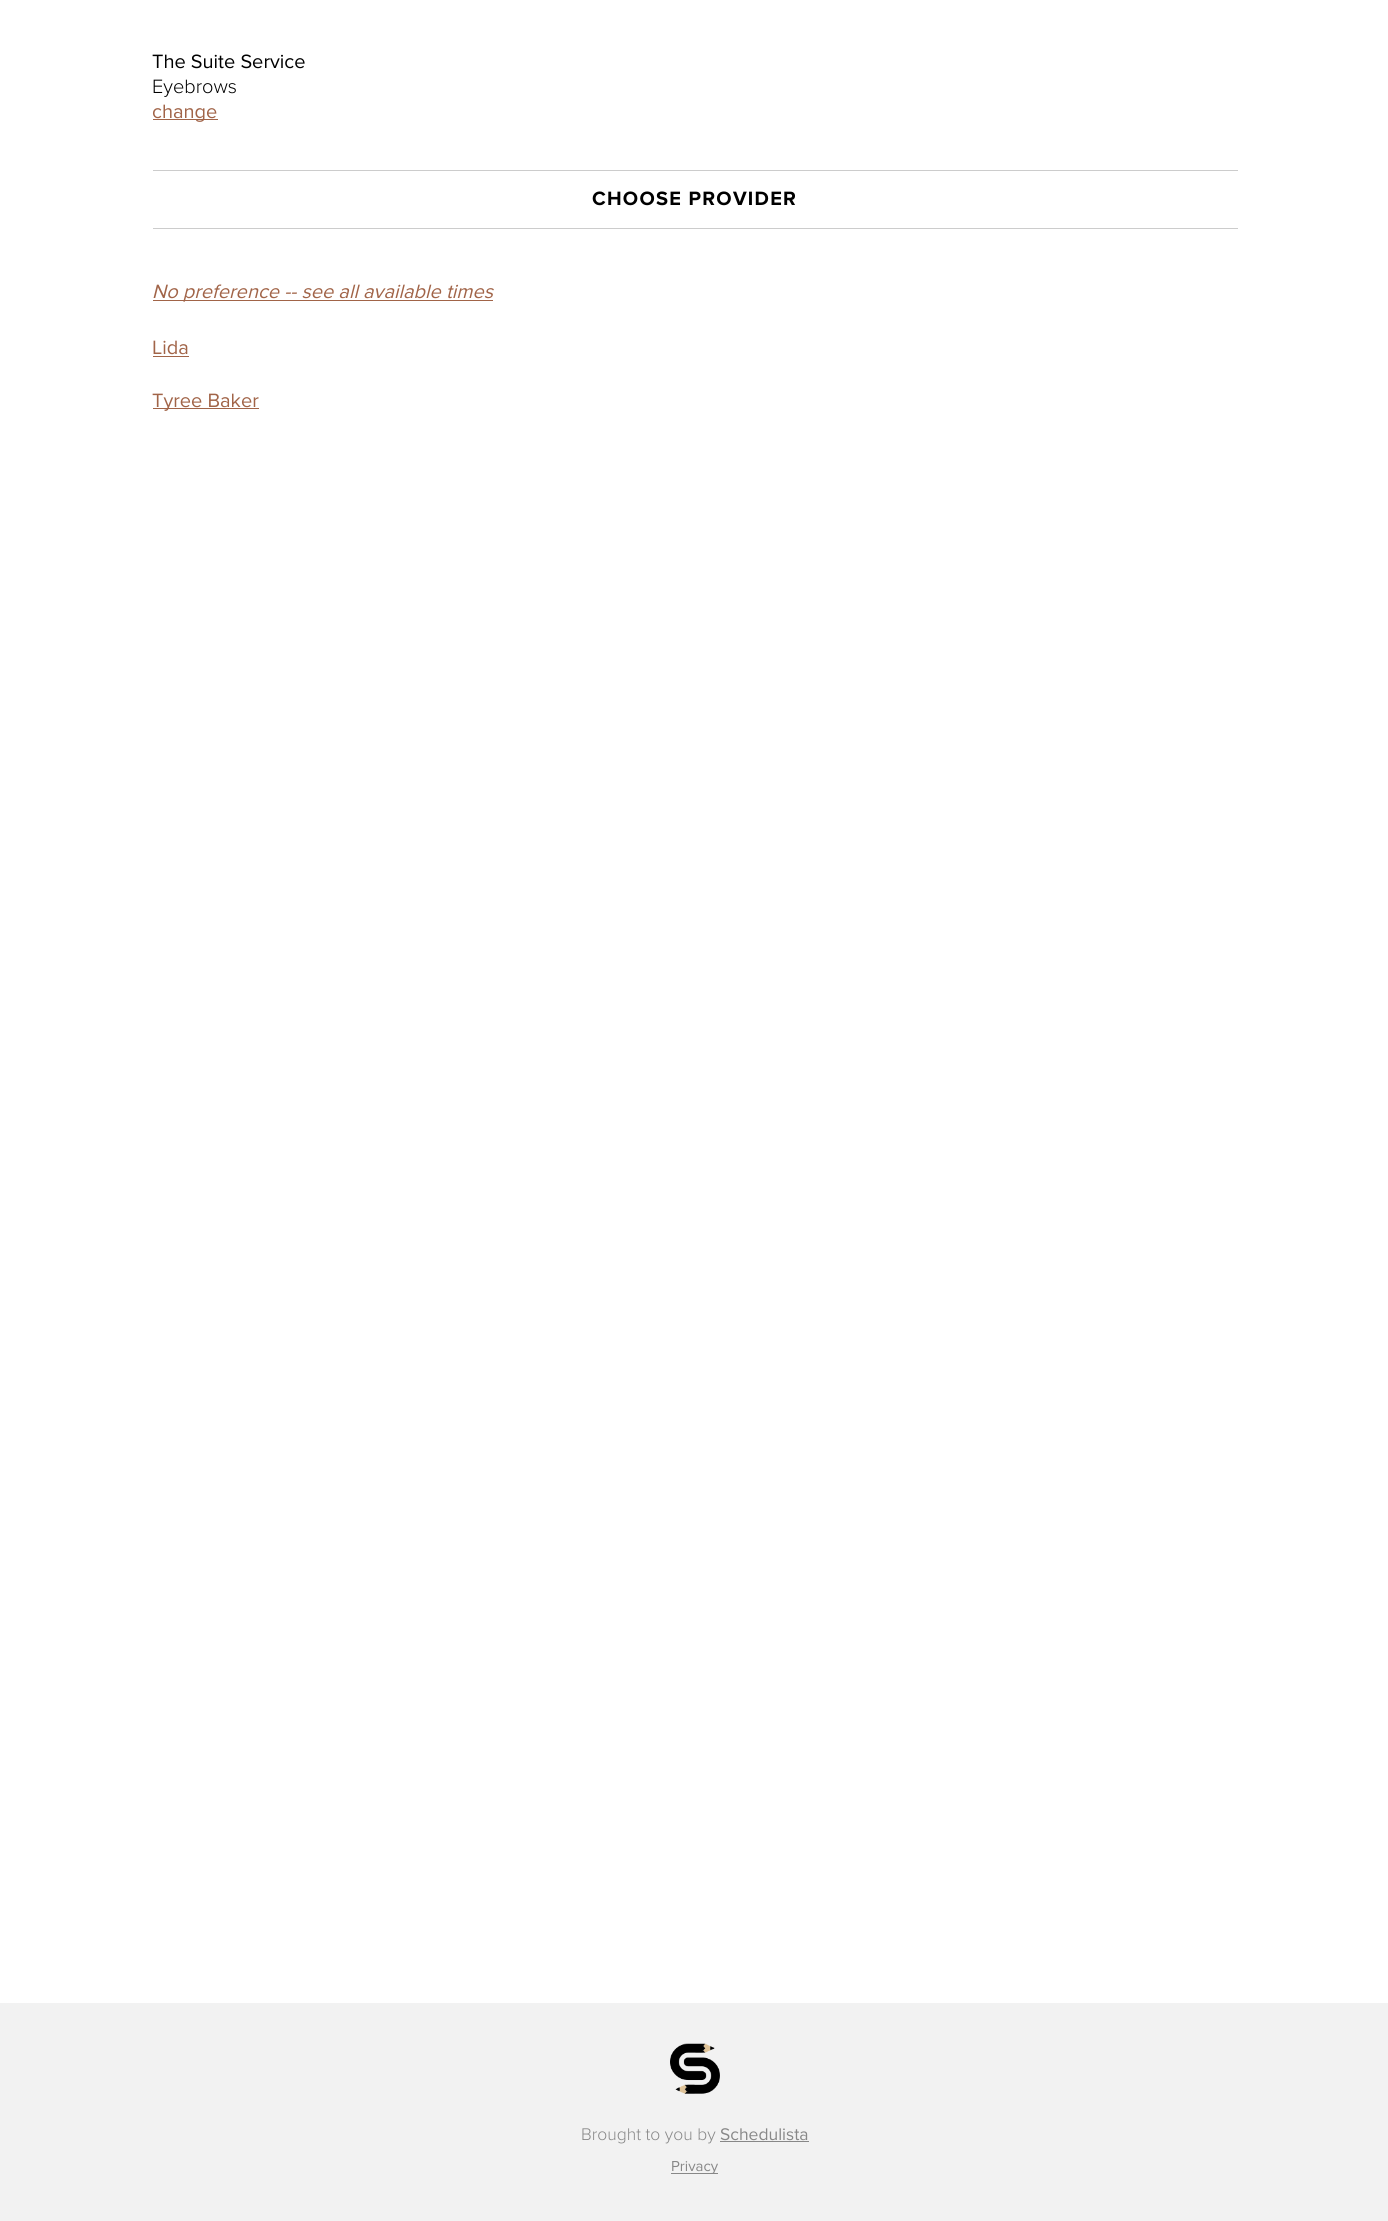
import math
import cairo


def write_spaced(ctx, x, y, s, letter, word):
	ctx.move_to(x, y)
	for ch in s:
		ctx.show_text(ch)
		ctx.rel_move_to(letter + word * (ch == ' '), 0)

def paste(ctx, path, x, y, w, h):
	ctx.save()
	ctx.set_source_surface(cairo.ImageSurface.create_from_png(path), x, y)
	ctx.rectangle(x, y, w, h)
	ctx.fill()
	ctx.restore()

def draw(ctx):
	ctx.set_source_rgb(1, 1, 1)
	ctx.paint()
	ctx.select_font_face('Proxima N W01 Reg')
	ctx.set_font_size(20)
	ctx.set_source_rgb(0, 0, 0)
	ctx.move_to(152, 68)
	ctx.show_text('The Suite Service')
	ctx.select_font_face('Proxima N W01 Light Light')
	ctx.move_to(152, 93)
	ctx.show_text('Eyebrows')
	ctx.set_source_rgb(0.631, 0.392, 0.282)
	ctx.rectangle(153, 119, 65, 1)
	ctx.fill()
	ctx.select_font_face('Proxima N W01 Reg')
	ctx.move_to(152, 118)
	ctx.show_text('change')
	ctx.set_source_rgb(0.8, 0.8, 0.8)
	ctx.rectangle(153, 170, 1085, 1)
	ctx.fill()
	ctx.rectangle(153, 228, 1085, 1)
	ctx.fill()
	ctx.select_font_face('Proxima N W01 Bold', cairo.FONT_SLANT_NORMAL, cairo.FONT_WEIGHT_BOLD)
	ctx.set_source_rgb(0, 0, 0)
	write_spaced(ctx, 592, 205, 'CHOOSE PROVIDER', 1.25, 0)
	ctx.set_source_rgb(0.631, 0.392, 0.282)
	ctx.rectangle(153, 300, 340, 1)
	ctx.fill()
	ctx.select_font_face('Proxima N W01 Reg', cairo.FONT_SLANT_ITALIC)
	ctx.move_to(152, 298)
	ctx.show_text('No preference -- see all available times')
	ctx.select_font_face('Proxima N W01 Reg')
	ctx.move_to(152, 354)
	ctx.show_text('Lida')
	ctx.rectangle(153, 356, 36, 1)
	ctx.fill()
	ctx.rectangle(153, 408, 106, 1)
	ctx.fill()
	ctx.move_to(152, 407)
	ctx.show_text('Tyree Baker')
	ctx.set_source_rgb(0.949, 0.949, 0.949)
	ctx.rectangle(0, 2003, 1388, 218)
	ctx.fill()
	paste(ctx, 'media/1.png', 670, 2043, 50, 51)
	ctx.select_font_face('Proxima N W01 Light Light')
	ctx.set_font_size(17.5)
	ctx.set_source_rgb(0.533, 0.533, 0.533)
	ctx.move_to(581, 2140)
	ctx.show_text('Brought to you by')
	ctx.select_font_face('Proxima N W01 Reg')
	ctx.move_to(720, 2140)
	ctx.show_text('Schedulista')
	ctx.rectangle(720, 2141, 89, 1)
	ctx.fill()
	ctx.rectangle(671, 2173, 47, 1)
	ctx.fill()
	ctx.set_font_size(15)
	ctx.move_to(671, 2171)
	ctx.show_text('Privacy')


surface = cairo.ImageSurface(cairo.FORMAT_RGB24, 1388, 2221)
ctx = cairo.Context(surface)
options = cairo.FontOptions()
options.set_hint_metrics(cairo.HINT_METRICS_OFF)
options.set_hint_style(cairo.HINT_STYLE_NONE)
ctx.set_font_options(options)
ctx.set_miter_limit(4)
draw(ctx)
surface.write_to_png('image.png')
